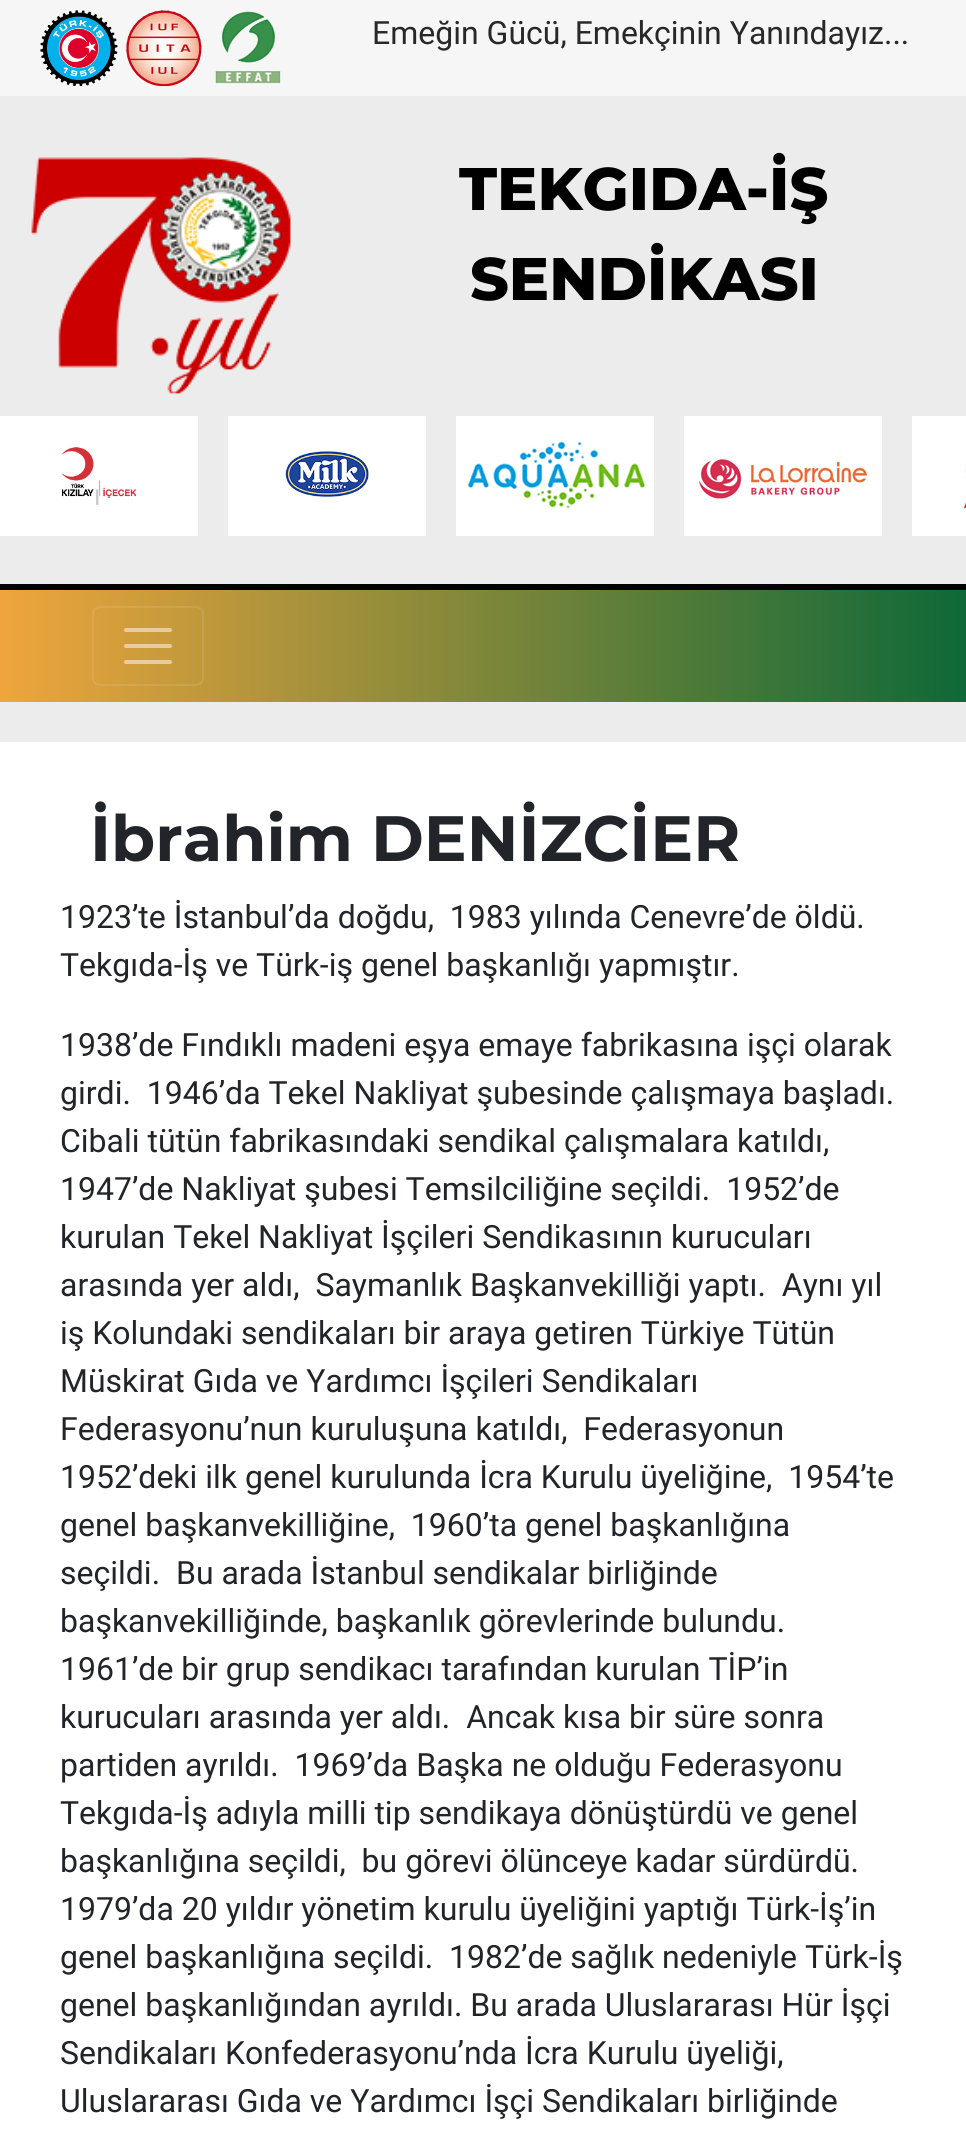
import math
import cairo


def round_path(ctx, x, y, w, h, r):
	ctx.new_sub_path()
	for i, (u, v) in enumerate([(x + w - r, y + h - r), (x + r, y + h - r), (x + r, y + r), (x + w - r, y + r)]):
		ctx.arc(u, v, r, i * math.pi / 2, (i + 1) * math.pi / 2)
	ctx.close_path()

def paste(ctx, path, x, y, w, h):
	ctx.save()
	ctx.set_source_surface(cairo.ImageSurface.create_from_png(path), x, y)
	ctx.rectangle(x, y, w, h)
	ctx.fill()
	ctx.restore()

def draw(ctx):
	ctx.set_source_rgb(0.925, 0.925, 0.925)
	ctx.paint()
	ctx.set_source_rgb(0.961, 0.961, 0.961)
	ctx.rectangle(0, 0, 966, 96)
	ctx.fill()
	paste(ctx, 'media/1.png', 40, 10, 78, 76)
	paste(ctx, 'media/2.png', 126, 10, 76, 76)
	paste(ctx, 'media/3.png', 215, 11, 66, 73)
	ctx.select_font_face('Roboto')
	ctx.set_font_size(32)
	ctx.set_source_rgb(0.161, 0.153, 0.153)
	ctx.move_to(372, 44)
	ctx.show_text('Emeğin Gücü, Emekçinin Yanındayız...')
	paste(ctx, 'media/4.png', 31, 157, 260, 237)
	ctx.select_font_face('Montserrat ExtraBold')
	ctx.set_font_size(60)
	ctx.set_source_rgb(0, 0, 0)
	ctx.move_to(459, 210)
	ctx.show_text('TEKGIDA-İŞ')
	ctx.move_to(470, 300)
	ctx.show_text('SENDİKASI')
	paste(ctx, 'media/5.png', 0, 416, 198, 120)
	paste(ctx, 'media/6.png', 228, 416, 198, 120)
	paste(ctx, 'media/7.png', 456, 416, 198, 120)
	paste(ctx, 'media/8.png', 684, 416, 198, 120)
	paste(ctx, 'media/9.png', 912, 416, 54, 120)
	gradient = cairo.LinearGradient(0, 646, 966, 646)
	gradient.add_color_stop_rgba(0, 0.937, 0.647, 0.235, 1)
	gradient.add_color_stop_rgba(1, 0.055, 0.412, 0.22, 1)
	ctx.set_source(gradient)
	ctx.rectangle(0, 590, 966, 112)
	ctx.fill()
	ctx.set_source_rgb(0, 0, 0)
	ctx.rectangle(0, 584, 966, 6)
	ctx.fill()
	round_path(ctx, 93, 607, 110, 78, 7)
	ctx.set_source_rgba(1, 1, 1, 0.1)
	ctx.stroke()
	ctx.new_path()
	ctx.move_to(126, 630)
	ctx.line_to(170, 630)
	ctx.move_to(126, 646)
	ctx.line_to(170, 646)
	ctx.move_to(126, 662)
	ctx.line_to(170, 662)
	ctx.set_source_rgba(1, 1, 1, 0.5)
	ctx.set_line_width(4)
	ctx.set_line_cap(cairo.LINE_CAP_ROUND)
	ctx.stroke()
	ctx.set_source_rgb(1, 1, 1)
	ctx.rectangle(0, 742, 966, 1411)
	ctx.fill()
	ctx.select_font_face('Montserrat', cairo.FONT_SLANT_NORMAL, cairo.FONT_WEIGHT_BOLD)
	ctx.set_font_size(64)
	ctx.set_source_rgb(0.129, 0.145, 0.161)
	ctx.move_to(90, 861)
	ctx.show_text('İbrahim DENİZCİER')
	ctx.select_font_face('Roboto')
	ctx.set_font_size(32)
	for x, y, s in [
		(60, 928, '1923’te İstanbul’da doğdu,  1983 yılında Cenevre’de öldü.'),
		(60, 976, 'Tekgıda-İş ve Türk-iş genel başkanlığı yapmıştır.'),
		(60, 1056, '1938’de Fındıklı madeni eşya emaye fabrikasına işçi olarak'),
		(60, 1104, 'girdi.  1946’da Tekel Nakliyat şubesinde çalışmaya başladı.'),
		(60, 1152, 'Cibali tütün fabrikasındaki sendikal çalışmalara katıldı,'),
		(60, 1200, '1947’de Nakliyat şubesi Temsilciliğine seçildi.  1952’de'),
		(60, 1248, 'kurulan Tekel Nakliyat İşçileri Sendikasının kurucuları'),
		(60, 1296, 'arasında yer aldı,  Saymanlık Başkanvekilliği yaptı.  Aynı yıl'),
		(60, 1344, 'iş Kolundaki sendikaları bir araya getiren Türkiye Tütün'),
		(60, 1392, 'Müskirat Gıda ve Yardımcı İşçileri Sendikaları'),
		(60, 1440, 'Federasyonu’nun kuruluşuna katıldı,  Federasyonun'),
		(60, 1488, '1952’deki ilk genel kurulunda İcra Kurulu üyeliğine,  1954’te'),
		(60, 1536, 'genel başkanvekilliğine,  1960’ta genel başkanlığına'),
		(60, 1584, 'seçildi.  Bu arada İstanbul sendikalar birliğinde'),
		(60, 1632, 'başkanvekilliğinde, başkanlık görevlerinde bulundu.'),
		(60, 1680, '1961’de bir grup sendikacı tarafından kurulan TİP’in'),
		(60, 1728, 'kurucuları arasında yer aldı.  Ancak kısa bir süre sonra'),
		(60, 1776, 'partiden ayrıldı.  1969’da Başka ne olduğu Federasyonu'),
		(60, 1824, 'Tekgıda-İş adıyla milli tip sendikaya dönüştürdü ve genel'),
		(60, 1872, 'başkanlığına seçildi,  bu görevi ölünceye kadar sürdürdü.'),
		(60, 1920, '1979’da 20 yıldır yönetim kurulu üyeliğini yaptığı Türk-İş’in'),
		(60, 1968, 'genel başkanlığına seçildi.  1982’de sağlık nedeniyle Türk-İş'),
		(60, 2016, 'genel başkanlığından ayrıldı. Bu arada Uluslararası Hür İşçi'),
		(60, 2064, 'Sendikaları Konfederasyonu’nda İcra Kurulu üyeliği,'),
		(60, 2112, 'Uluslararası Gıda ve Yardımcı İşçi Sendikaları birliğinde'),
	]:
		ctx.move_to(x, y)
		ctx.show_text(s)


surface = cairo.ImageSurface(cairo.FORMAT_RGB24, 966, 2153)
ctx = cairo.Context(surface)
options = cairo.FontOptions()
options.set_hint_metrics(cairo.HINT_METRICS_OFF)
options.set_hint_style(cairo.HINT_STYLE_NONE)
ctx.set_font_options(options)
ctx.set_miter_limit(4)
draw(ctx)
surface.write_to_png('image.png')
